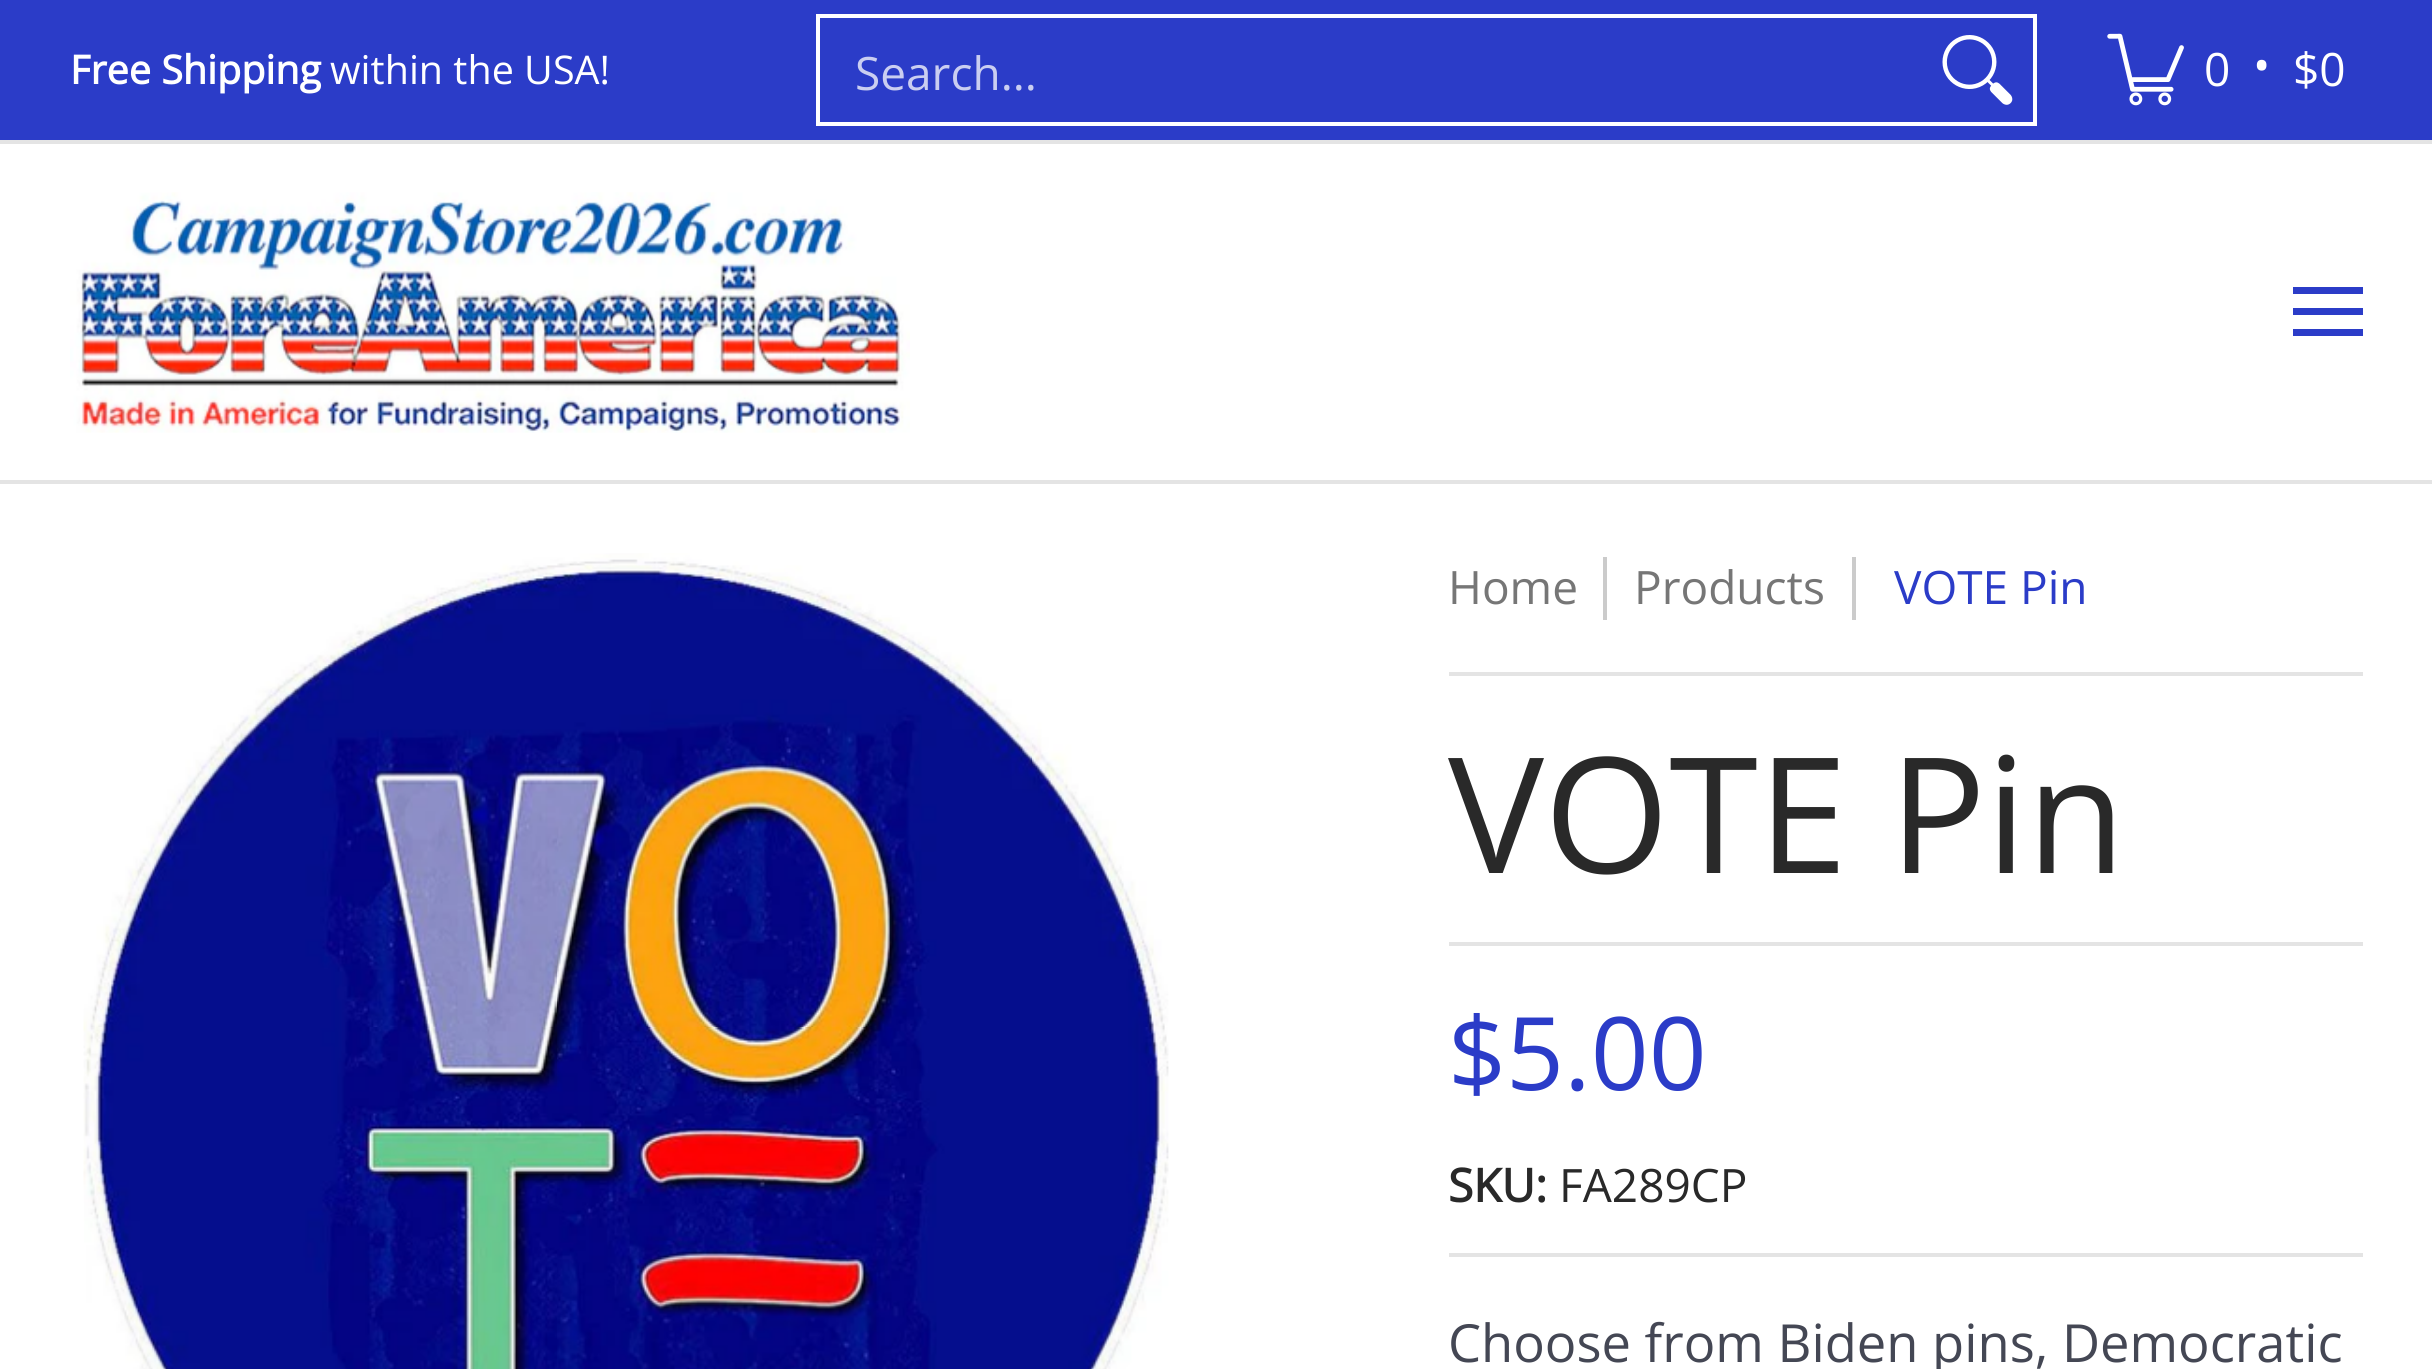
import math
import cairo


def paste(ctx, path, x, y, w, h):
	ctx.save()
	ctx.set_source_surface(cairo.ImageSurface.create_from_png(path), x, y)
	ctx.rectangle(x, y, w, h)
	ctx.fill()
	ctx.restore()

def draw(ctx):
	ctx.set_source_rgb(1, 1, 1)
	ctx.paint()
	ctx.set_source_rgb(0.169, 0.235, 0.784)
	ctx.rectangle(0, 0, 2432, 140)
	ctx.fill()
	ctx.set_source_rgb(0.894, 0.894, 0.894)
	ctx.rectangle(0, 140, 2432, 4)
	ctx.fill()
	ctx.select_font_face('Open Sans', cairo.FONT_SLANT_NORMAL, cairo.FONT_WEIGHT_BOLD)
	ctx.set_font_size(39.5)
	ctx.set_source_rgb(1, 1, 1)
	ctx.move_to(70, 84)
	ctx.show_text('Free Shipping')
	ctx.select_font_face('Open Sans')
	ctx.move_to(330, 84)
	ctx.show_text('within the USA!')
	ctx.rectangle(818, 16, 1217, 108)
	ctx.set_line_width(4)
	ctx.stroke()
	ctx.set_font_size(46)
	ctx.set_source_rgb(0.792, 0.808, 0.945)
	ctx.move_to(855, 90)
	ctx.show_text('Search...')
	paste(ctx, 'media/1.png', 1942, 35, 71, 70)
	paste(ctx, 'media/2.png', 2107, 33, 77, 73)
	ctx.set_source_rgb(1, 1, 1)
	for x, y, s in [
		(2204, 86, '0'),
		(2253, 82, '•'),
		(2293, 86, '$0'),
	]:
		ctx.move_to(x, y)
		ctx.show_text(s)
	ctx.set_source_rgb(0.894, 0.894, 0.894)
	ctx.rectangle(0, 480, 2432, 4)
	ctx.fill()
	paste(ctx, 'media/3.png', 70, 192, 840, 241)
	ctx.set_source_rgb(0.169, 0.235, 0.784)
	ctx.rectangle(2293, 287, 70, 7)
	ctx.rectangle(2293, 329, 70, 7)
	ctx.rectangle(2293, 308, 70, 7)
	ctx.fill()
	paste(ctx, 'media/4.png', 83, 553, 1086, 816)
	ctx.set_source_rgb(0.894, 0.894, 0.894)
	ctx.rectangle(1449, 672, 914, 4)
	ctx.fill()
	ctx.set_source_rgb(0.463, 0.463, 0.463)
	ctx.move_to(1448, 604)
	ctx.show_text('Home')
	ctx.set_source_rgb(0.796, 0.796, 0.796)
	ctx.rectangle(1603, 557, 4, 63)
	ctx.fill()
	ctx.set_source_rgb(0.463, 0.463, 0.463)
	ctx.move_to(1634, 604)
	ctx.show_text('Products')
	ctx.set_source_rgb(0.796, 0.796, 0.796)
	ctx.rectangle(1852, 557, 4, 63)
	ctx.fill()
	ctx.set_source_rgb(0.169, 0.235, 0.784)
	ctx.move_to(1894, 604)
	ctx.show_text('VOTE Pin')
	ctx.set_source_rgb(0.894, 0.894, 0.894)
	ctx.rectangle(1449, 942, 914, 4)
	ctx.fill()
	ctx.set_font_size(161)
	ctx.set_source_rgb(0.161, 0.161, 0.161)
	ctx.move_to(1448, 873)
	ctx.show_text('VOTE Pin')
	ctx.set_font_size(101.5)
	ctx.set_source_rgb(0.169, 0.235, 0.784)
	ctx.move_to(1448, 1090)
	ctx.show_text('$5.00')
	ctx.select_font_face('Open Sans', cairo.FONT_SLANT_NORMAL, cairo.FONT_WEIGHT_BOLD)
	ctx.set_font_size(46)
	ctx.set_source_rgb(0.161, 0.161, 0.161)
	ctx.move_to(1448, 1202)
	ctx.show_text('SKU:')
	ctx.select_font_face('Open Sans')
	ctx.move_to(1559, 1202)
	ctx.show_text('FA289CP')
	ctx.set_source_rgb(0.894, 0.894, 0.894)
	ctx.rectangle(1449, 1253, 914, 4)
	ctx.fill()
	ctx.set_font_size(52.5)
	ctx.set_source_rgb(0.267, 0.278, 0.329)
	ctx.move_to(1448, 1362)
	ctx.show_text('Choose from Biden pins, Democratic')


surface = cairo.ImageSurface(cairo.FORMAT_RGB24, 2432, 1369)
ctx = cairo.Context(surface)
options = cairo.FontOptions()
options.set_hint_metrics(cairo.HINT_METRICS_OFF)
options.set_hint_style(cairo.HINT_STYLE_NONE)
ctx.set_font_options(options)
ctx.set_miter_limit(4)
draw(ctx)
surface.write_to_png('image.png')
